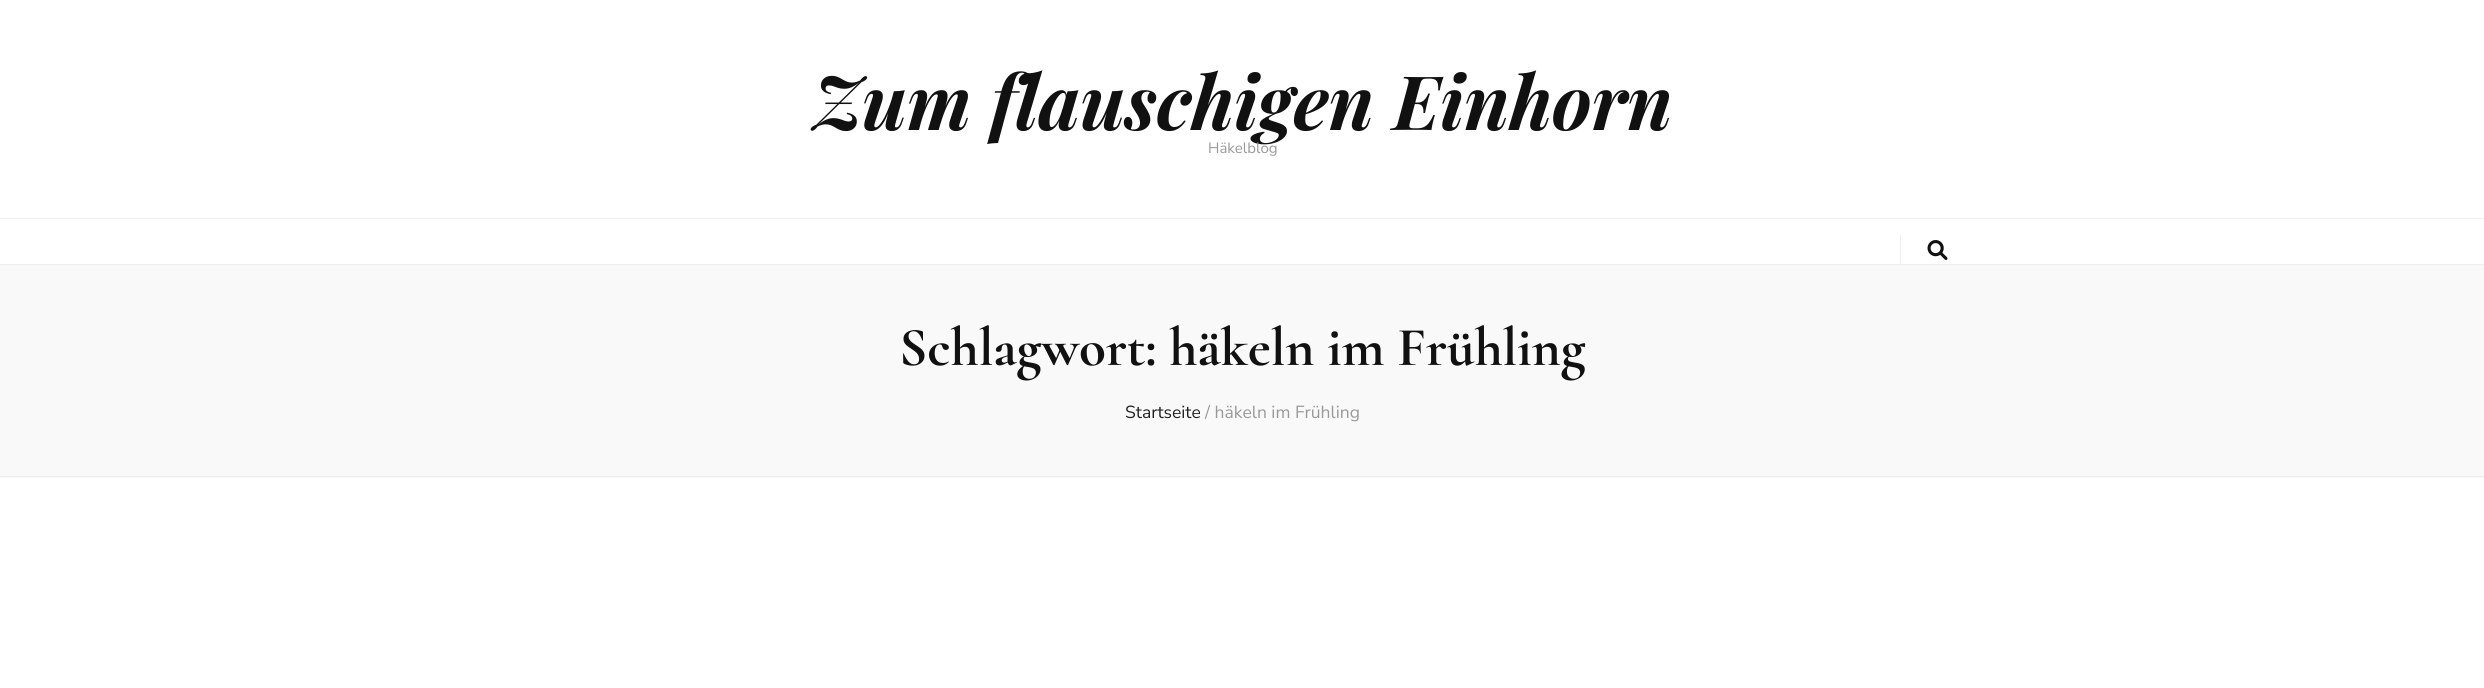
import math
import cairo


def paste(ctx, path, x, y, w, h):
	ctx.save()
	ctx.set_source_surface(cairo.ImageSurface.create_from_png(path), x, y)
	ctx.rectangle(x, y, w, h)
	ctx.fill()
	ctx.restore()

def draw(ctx):
	ctx.set_source_rgb(1, 1, 1)
	ctx.paint()
	ctx.select_font_face('Playfair Display', cairo.FONT_SLANT_ITALIC, cairo.FONT_WEIGHT_BOLD)
	ctx.set_font_size(75)
	ctx.set_source_rgb(0.067, 0.067, 0.067)
	ctx.move_to(813, 130)
	ctx.show_text('Zum flauschigen Einhorn')
	ctx.select_font_face('Nunito Sans')
	ctx.set_font_size(15)
	ctx.set_source_rgb(0.6, 0.6, 0.6)
	ctx.move_to(1208, 153)
	ctx.show_text('Häkelblog')
	ctx.set_source_rgb(0.933, 0.933, 0.933)
	ctx.rectangle(0, 218, 2484, 1)
	ctx.rectangle(0, 264, 2484, 1)
	ctx.rectangle(1900, 234, 1, 30)
	ctx.fill()
	paste(ctx, 'media/1.png', 1927, 240, 21, 20)
	ctx.set_source_rgb(0.976, 0.976, 0.976)
	ctx.rectangle(0, 265, 2484, 213)
	ctx.fill()
	ctx.set_source_rgb(0.933, 0.933, 0.933)
	ctx.rectangle(0, 476, 2484, 1)
	ctx.fill()
	ctx.select_font_face('Cormorant', cairo.FONT_SLANT_NORMAL, cairo.FONT_WEIGHT_BOLD)
	ctx.set_font_size(55)
	ctx.set_source_rgb(0.067, 0.067, 0.067)
	ctx.move_to(899, 365)
	ctx.show_text('Schlagwort: häkeln im Frühling')
	ctx.select_font_face('Nunito Sans')
	ctx.set_font_size(17.5)
	ctx.set_source_rgb(0.133, 0.133, 0.133)
	ctx.move_to(1125, 418)
	ctx.show_text('Startseite')
	ctx.set_source_rgb(0.6, 0.6, 0.6)
	ctx.move_to(1205, 418)
	ctx.show_text('/ häkeln im Frühling')


surface = cairo.ImageSurface(cairo.FORMAT_RGB24, 2484, 688)
ctx = cairo.Context(surface)
options = cairo.FontOptions()
options.set_hint_metrics(cairo.HINT_METRICS_OFF)
options.set_hint_style(cairo.HINT_STYLE_NONE)
ctx.set_font_options(options)
ctx.set_miter_limit(4)
draw(ctx)
surface.write_to_png('image.png')
